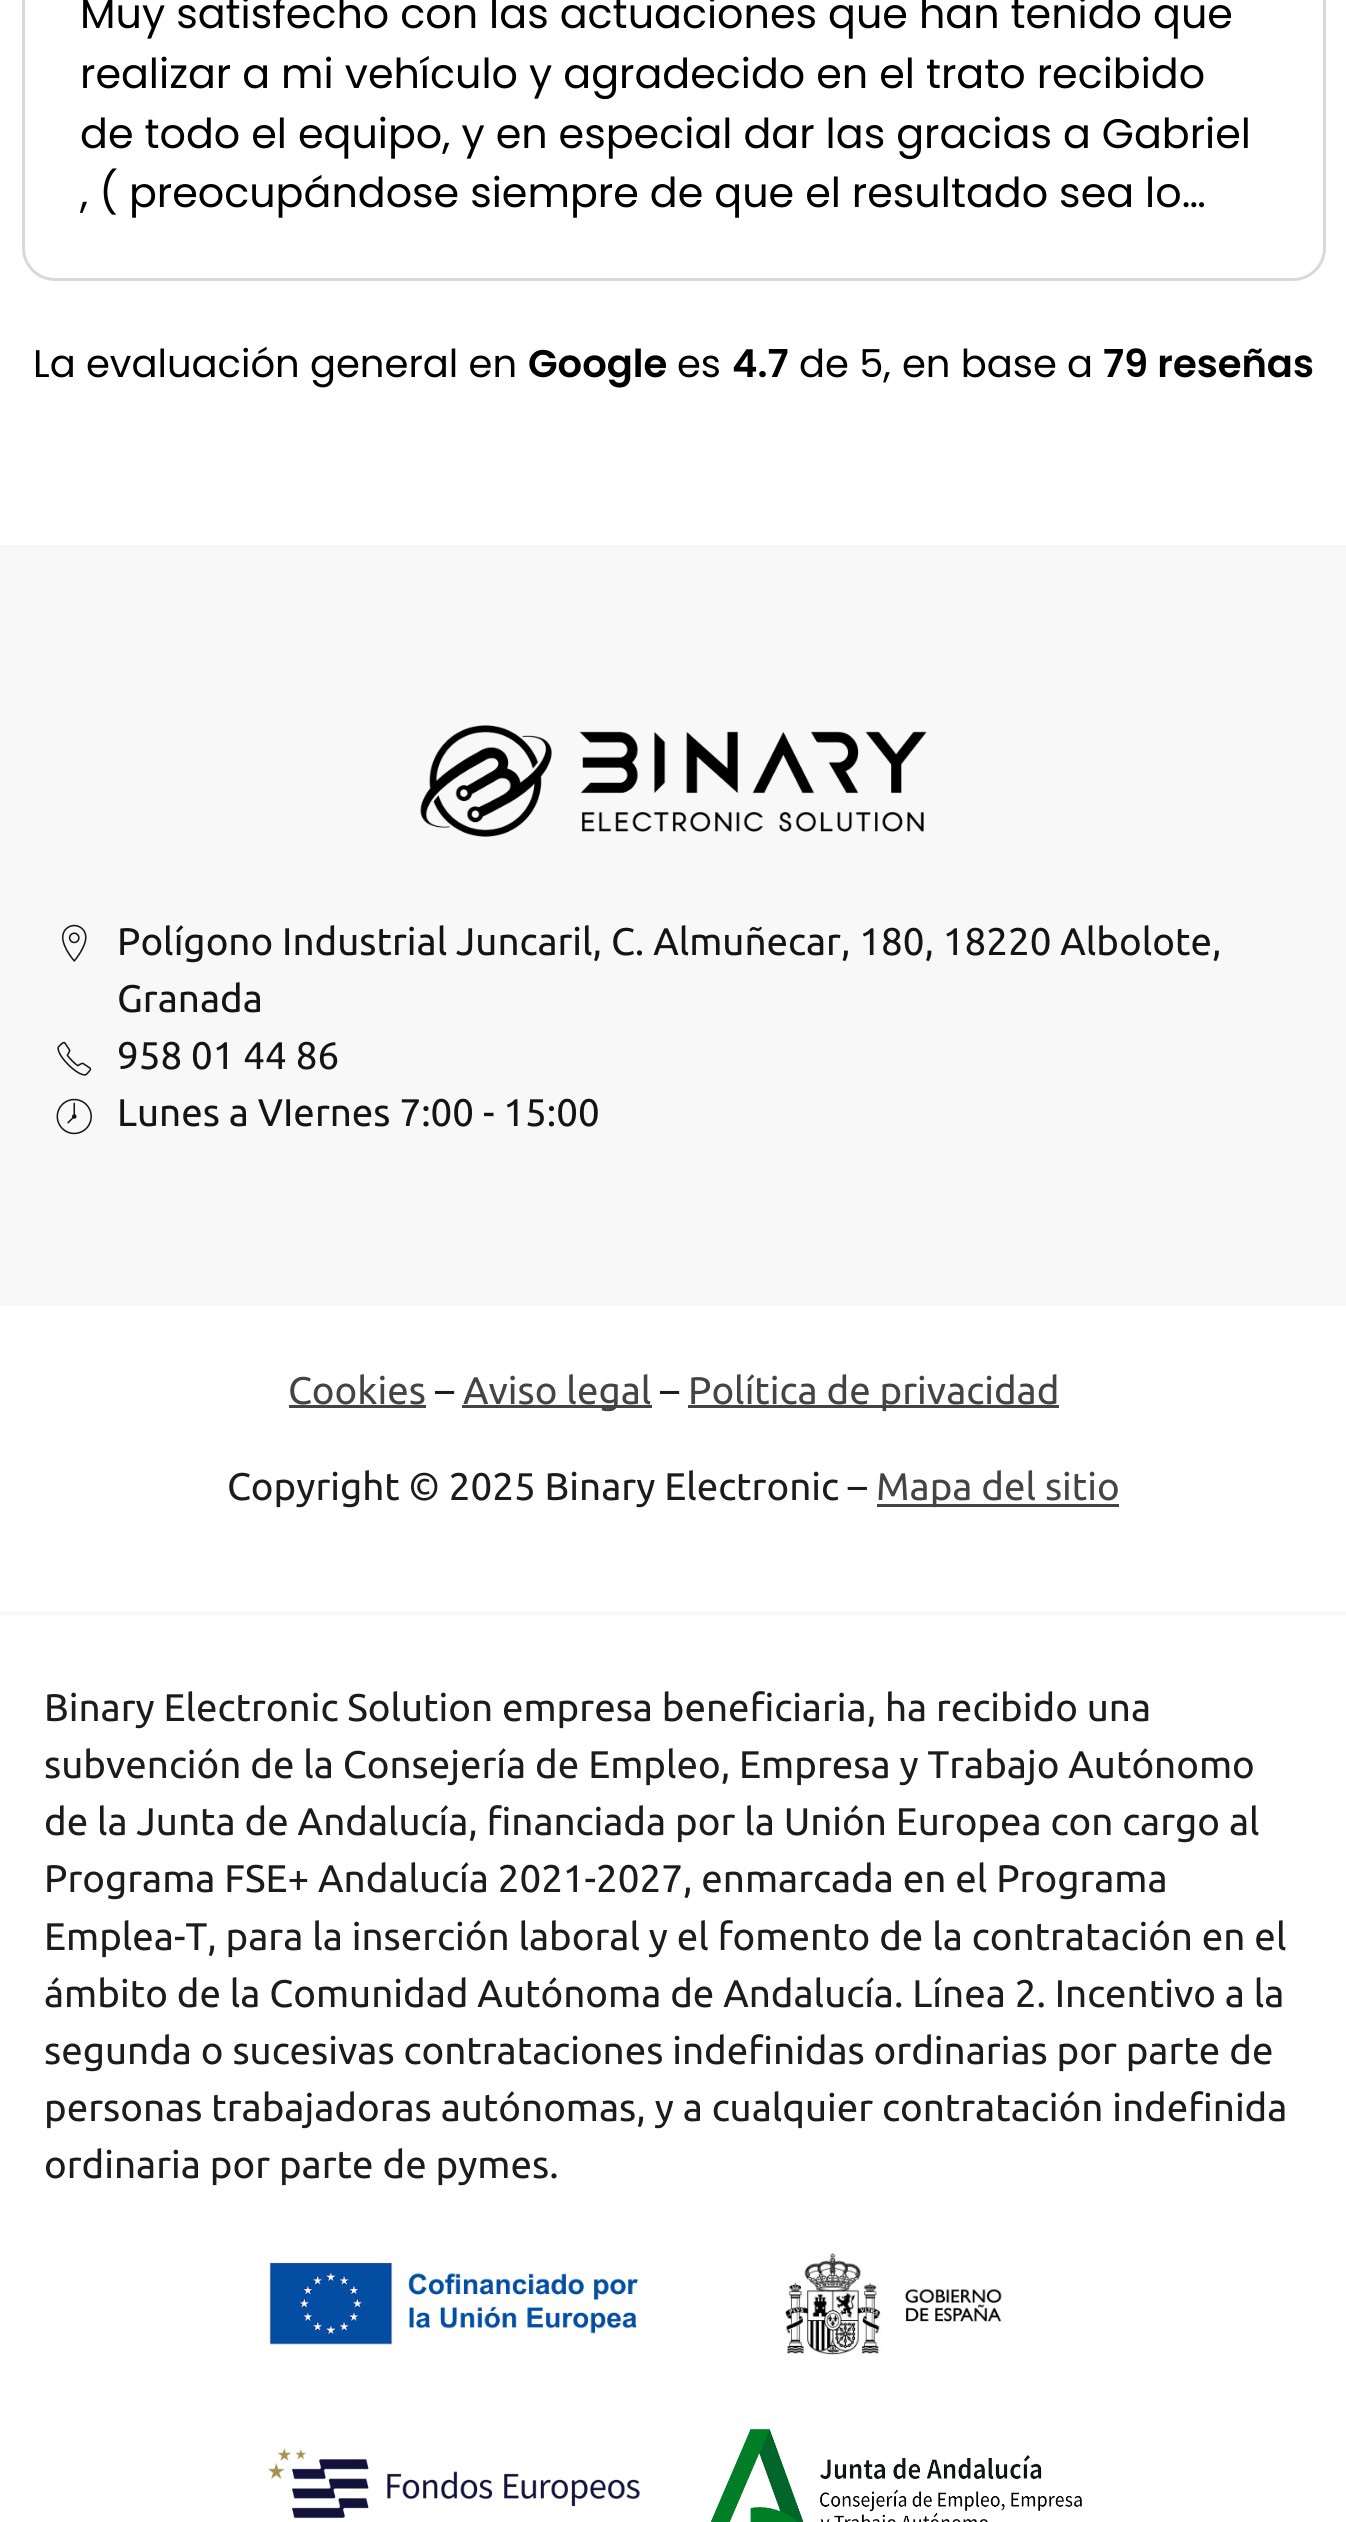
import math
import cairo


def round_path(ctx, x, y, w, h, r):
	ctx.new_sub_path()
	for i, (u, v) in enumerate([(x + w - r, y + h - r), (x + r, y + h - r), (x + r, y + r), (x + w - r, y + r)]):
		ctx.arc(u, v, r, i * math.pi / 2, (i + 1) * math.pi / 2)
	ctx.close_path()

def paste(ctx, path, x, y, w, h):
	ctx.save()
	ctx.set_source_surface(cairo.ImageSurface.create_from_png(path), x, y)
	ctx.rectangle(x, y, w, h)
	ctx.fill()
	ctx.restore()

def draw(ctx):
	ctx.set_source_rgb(1, 1, 1)
	ctx.paint()
	round_path(ctx, 23.5, -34.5, 1301, 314, 31.5)
	ctx.set_source_rgb(0.851, 0.851, 0.851)
	ctx.set_line_width(3)
	ctx.stroke()
	ctx.select_font_face('Poppins')
	ctx.set_font_size(41.25)
	ctx.set_source_rgb(0, 0, 0)
	for x, y, s in [
		(80, 28, 'Muy satisfecho con las actuaciones que han tenido que'),
		(80, 88, 'realizar a mi vehículo y agradecido en el trato recibido'),
		(80, 148, 'de todo el equipo, y en especial dar las gracias a Gabriel'),
		(80, 207, ', ( preocupándose siempre de que el resultado sea lo…'),
	]:
		ctx.move_to(x, y)
		ctx.show_text(s)
	ctx.set_font_size(38.5)
	ctx.move_to(33, 377)
	ctx.show_text('La evaluación general en')
	ctx.select_font_face('Poppins SemiBold')
	ctx.move_to(528, 377)
	ctx.show_text('Google')
	ctx.select_font_face('Poppins')
	ctx.move_to(677, 377)
	ctx.show_text('es')
	ctx.select_font_face('Poppins SemiBold')
	ctx.move_to(732, 377)
	ctx.show_text('4.7')
	ctx.select_font_face('Poppins')
	ctx.move_to(799, 377)
	ctx.show_text('de 5,')
	ctx.move_to(902, 377)
	ctx.show_text('en base a')
	ctx.select_font_face('Poppins SemiBold')
	ctx.move_to(1103, 377)
	ctx.show_text('79 reseñas')
	ctx.set_source_rgb(0.969, 0.969, 0.969)
	ctx.rectangle(0, 545, 1346, 761)
	ctx.fill()
	paste(ctx, 'media/1.png', 420, 725, 507, 112)
	paste(ctx, 'media/2.png', 61, 924, 26, 38)
	ctx.select_font_face('Ubuntu')
	ctx.set_source_rgb(0.082, 0.082, 0.082)
	ctx.move_to(117, 955)
	ctx.show_text('Polígono Industrial Juncaril, C. Almuñecar, 180, 18220 Albolote,')
	ctx.move_to(117, 1012)
	ctx.show_text('Granada')
	paste(ctx, 'media/3.png', 57, 1041, 35, 35)
	ctx.move_to(117, 1069)
	ctx.show_text('958 01 44 86')
	paste(ctx, 'media/4.png', 56, 1098, 36, 37)
	ctx.move_to(117, 1126)
	ctx.show_text('Lunes a VIernes 7:00 - 15:00')
	ctx.set_source_rgb(0.267, 0.267, 0.267)
	ctx.move_to(288, 1404)
	ctx.show_text('Cookies')
	ctx.rectangle(289, 1405, 137, 3)
	ctx.fill()
	ctx.set_source_rgb(0.11, 0.11, 0.11)
	ctx.move_to(435, 1404)
	ctx.show_text('–')
	ctx.set_source_rgb(0.267, 0.267, 0.267)
	ctx.rectangle(462, 1405, 190, 3)
	ctx.fill()
	ctx.move_to(463, 1404)
	ctx.show_text('Aviso legal')
	ctx.set_source_rgb(0.11, 0.11, 0.11)
	ctx.move_to(660, 1404)
	ctx.show_text('–')
	ctx.set_source_rgb(0.267, 0.267, 0.267)
	ctx.rectangle(688, 1405, 371, 3)
	ctx.fill()
	ctx.move_to(688, 1404)
	ctx.show_text('Política de privacidad')
	ctx.set_source_rgb(0.11, 0.11, 0.11)
	ctx.move_to(227, 1500)
	ctx.show_text('Copyright © 2025 Binary Electronic –')
	ctx.set_source_rgb(0.267, 0.267, 0.267)
	ctx.rectangle(877, 1504, 242, 3)
	ctx.fill()
	ctx.move_to(876, 1500)
	ctx.show_text('Mapa del sitio')
	ctx.set_source_rgb(0.969, 0.969, 0.969)
	ctx.rectangle(0, 1612, 1346, 3)
	ctx.fill()
	ctx.set_source_rgb(0.11, 0.11, 0.11)
	for x, y, s in [
		(44, 1721, 'Binary Electronic Solution empresa beneficiaria, ha recibido una'),
		(44, 1778, 'subvención de la Consejería de Empleo, Empresa y Trabajo Autónomo'),
		(44, 1835, 'de la Junta de Andalucía, financiada por la Unión Europea con cargo al'),
		(44, 1892, 'Programa FSE+ Andalucía 2021-2027, enmarcada en el Programa'),
		(44, 1950, 'Emplea-T, para la inserción laboral y el fomento de la contratación en el'),
		(44, 2007, 'ámbito de la Comunidad Autónoma de Andalucía. Línea 2. Incentivo a la'),
		(44, 2064, 'segunda o sucesivas contrataciones indefinidas ordinarias por parte de'),
		(44, 2121, 'personas trabajadoras autónomas, y a cualquier contratación indefinida'),
		(44, 2178, 'ordinaria por parte de pymes.'),
	]:
		ctx.move_to(x, y)
		ctx.show_text(s)
	paste(ctx, 'media/5.png', 269, 2262, 369, 83)
	paste(ctx, 'media/6.png', 784, 2252, 218, 103)
	paste(ctx, 'media/7.png', 268, 2448, 372, 71)
	paste(ctx, 'media/8.png', 710, 2428, 372, 94)


surface = cairo.ImageSurface(cairo.FORMAT_RGB24, 1346, 2522)
ctx = cairo.Context(surface)
options = cairo.FontOptions()
options.set_hint_metrics(cairo.HINT_METRICS_OFF)
options.set_hint_style(cairo.HINT_STYLE_NONE)
ctx.set_font_options(options)
ctx.set_miter_limit(4)
draw(ctx)
surface.write_to_png('image.png')
